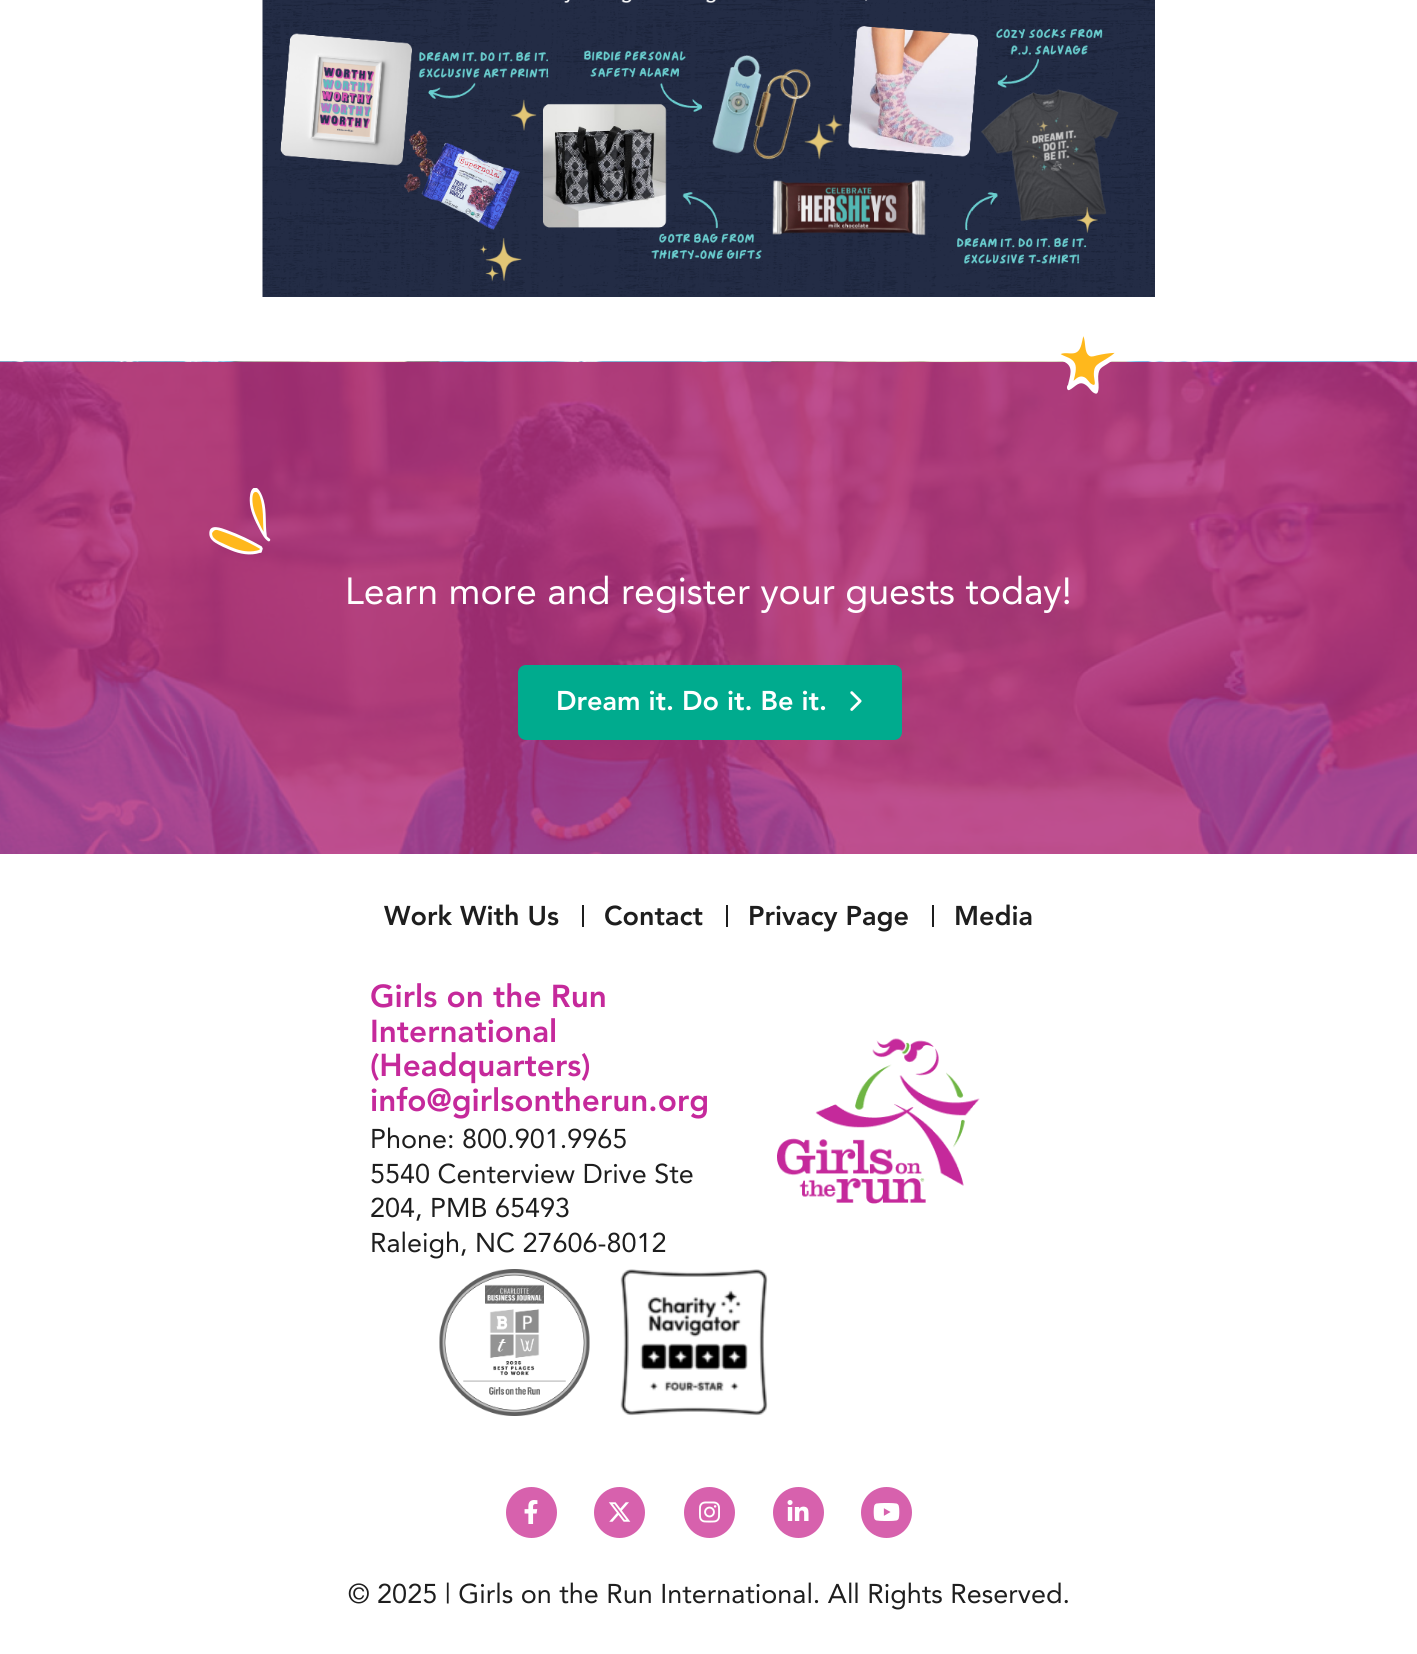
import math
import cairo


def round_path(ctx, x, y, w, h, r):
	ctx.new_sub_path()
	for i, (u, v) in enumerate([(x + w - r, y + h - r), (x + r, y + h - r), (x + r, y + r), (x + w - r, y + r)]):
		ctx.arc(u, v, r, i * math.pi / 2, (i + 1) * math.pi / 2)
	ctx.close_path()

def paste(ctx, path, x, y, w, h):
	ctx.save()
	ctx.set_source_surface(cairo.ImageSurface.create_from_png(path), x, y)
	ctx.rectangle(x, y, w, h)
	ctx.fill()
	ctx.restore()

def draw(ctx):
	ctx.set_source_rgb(1, 1, 1)
	ctx.paint()
	paste(ctx, 'media/1.png', 262, 0, 893, 297)
	paste(ctx, 'media/2.png', 0, 361, 1417, 493)
	paste(ctx, 'media/3.png', 1060, 336, 55, 58)
	paste(ctx, 'media/4.png', 209, 488, 62, 67)
	ctx.select_font_face('Avenir')
	ctx.set_font_size(37.5)
	ctx.set_source_rgb(1, 1, 1)
	ctx.move_to(345, 604)
	ctx.show_text('Learn more and register your guests today!')
	ctx.set_source_rgb(0, 0.671, 0.557)
	round_path(ctx, 518, 665, 384, 75, 8)
	ctx.fill()
	ctx.select_font_face('Avenir Black')
	ctx.set_font_size(27)
	ctx.set_source_rgb(1, 1, 1)
	ctx.move_to(556, 710)
	ctx.show_text('Dream it. Do it. Be it.')
	paste(ctx, 'media/5.png', 850, 691, 12, 20)
	ctx.set_source_rgb(0.118, 0.118, 0.118)
	ctx.move_to(384, 925)
	ctx.show_text('Work With Us')
	ctx.rectangle(582, 905, 2, 22)
	ctx.fill()
	ctx.move_to(604, 925)
	ctx.show_text('Contact')
	ctx.rectangle(726, 905, 2, 22)
	ctx.fill()
	ctx.move_to(748, 925)
	ctx.show_text('Privacy Page')
	ctx.rectangle(932, 905, 2, 22)
	ctx.fill()
	ctx.move_to(954, 925)
	ctx.show_text('Media')
	ctx.set_font_size(31.5)
	ctx.set_source_rgb(0.773, 0.161, 0.608)
	for x, y, s in [
		(370, 1007, 'Girls on the Run'),
		(370, 1042, 'International'),
		(370, 1076, '(Headquarters)'),
		(370, 1111, 'info@girlsontherun.org'),
	]:
		ctx.move_to(x, y)
		ctx.show_text(s)
	ctx.select_font_face('Avenir')
	ctx.set_font_size(27)
	ctx.set_source_rgb(0.118, 0.118, 0.118)
	for x, y, s in [
		(370, 1148, 'Phone: 800.901.9965'),
		(370, 1183, '5540 Centerview Drive Ste'),
		(370, 1217, '204, PMB 65493'),
		(370, 1252, 'Raleigh, NC 27606-8012'),
	]:
		ctx.move_to(x, y)
		ctx.show_text(s)
	paste(ctx, 'media/6.png', 777, 1038, 203, 166)
	paste(ctx, 'media/7.png', 439, 1269, 151, 147)
	paste(ctx, 'media/8.png', 620, 1269, 148, 147)
	ctx.set_source_rgb(0.843, 0.38, 0.678)
	ctx.arc(531.5, 1512.5, 25.5, 0, 2 * math.pi)
	ctx.fill()
	paste(ctx, 'media/9.png', 524, 1500, 14, 24)
	ctx.arc(619.5, 1512.5, 25.5, 0, 2 * math.pi)
	ctx.fill()
	paste(ctx, 'media/10.png', 608, 1502, 23, 20)
	ctx.arc(709.5, 1512.5, 25.5, 0, 2 * math.pi)
	ctx.fill()
	paste(ctx, 'media/11.png', 699, 1501, 21, 22)
	ctx.arc(798.5, 1512.5, 25.5, 0, 2 * math.pi)
	ctx.fill()
	paste(ctx, 'media/12.png', 787, 1500, 22, 21)
	ctx.arc(886.5, 1512.5, 25.5, 0, 2 * math.pi)
	ctx.fill()
	paste(ctx, 'media/13.png', 873, 1503, 27, 18)
	ctx.set_source_rgb(0.118, 0.118, 0.118)
	ctx.move_to(348, 1603)
	ctx.show_text('© 2025 | Girls on the Run International. All Rights Reserved.')


surface = cairo.ImageSurface(cairo.FORMAT_RGB24, 1417, 1654)
ctx = cairo.Context(surface)
options = cairo.FontOptions()
options.set_hint_metrics(cairo.HINT_METRICS_OFF)
options.set_hint_style(cairo.HINT_STYLE_NONE)
ctx.set_font_options(options)
ctx.set_miter_limit(4)
draw(ctx)
surface.write_to_png('image.png')
